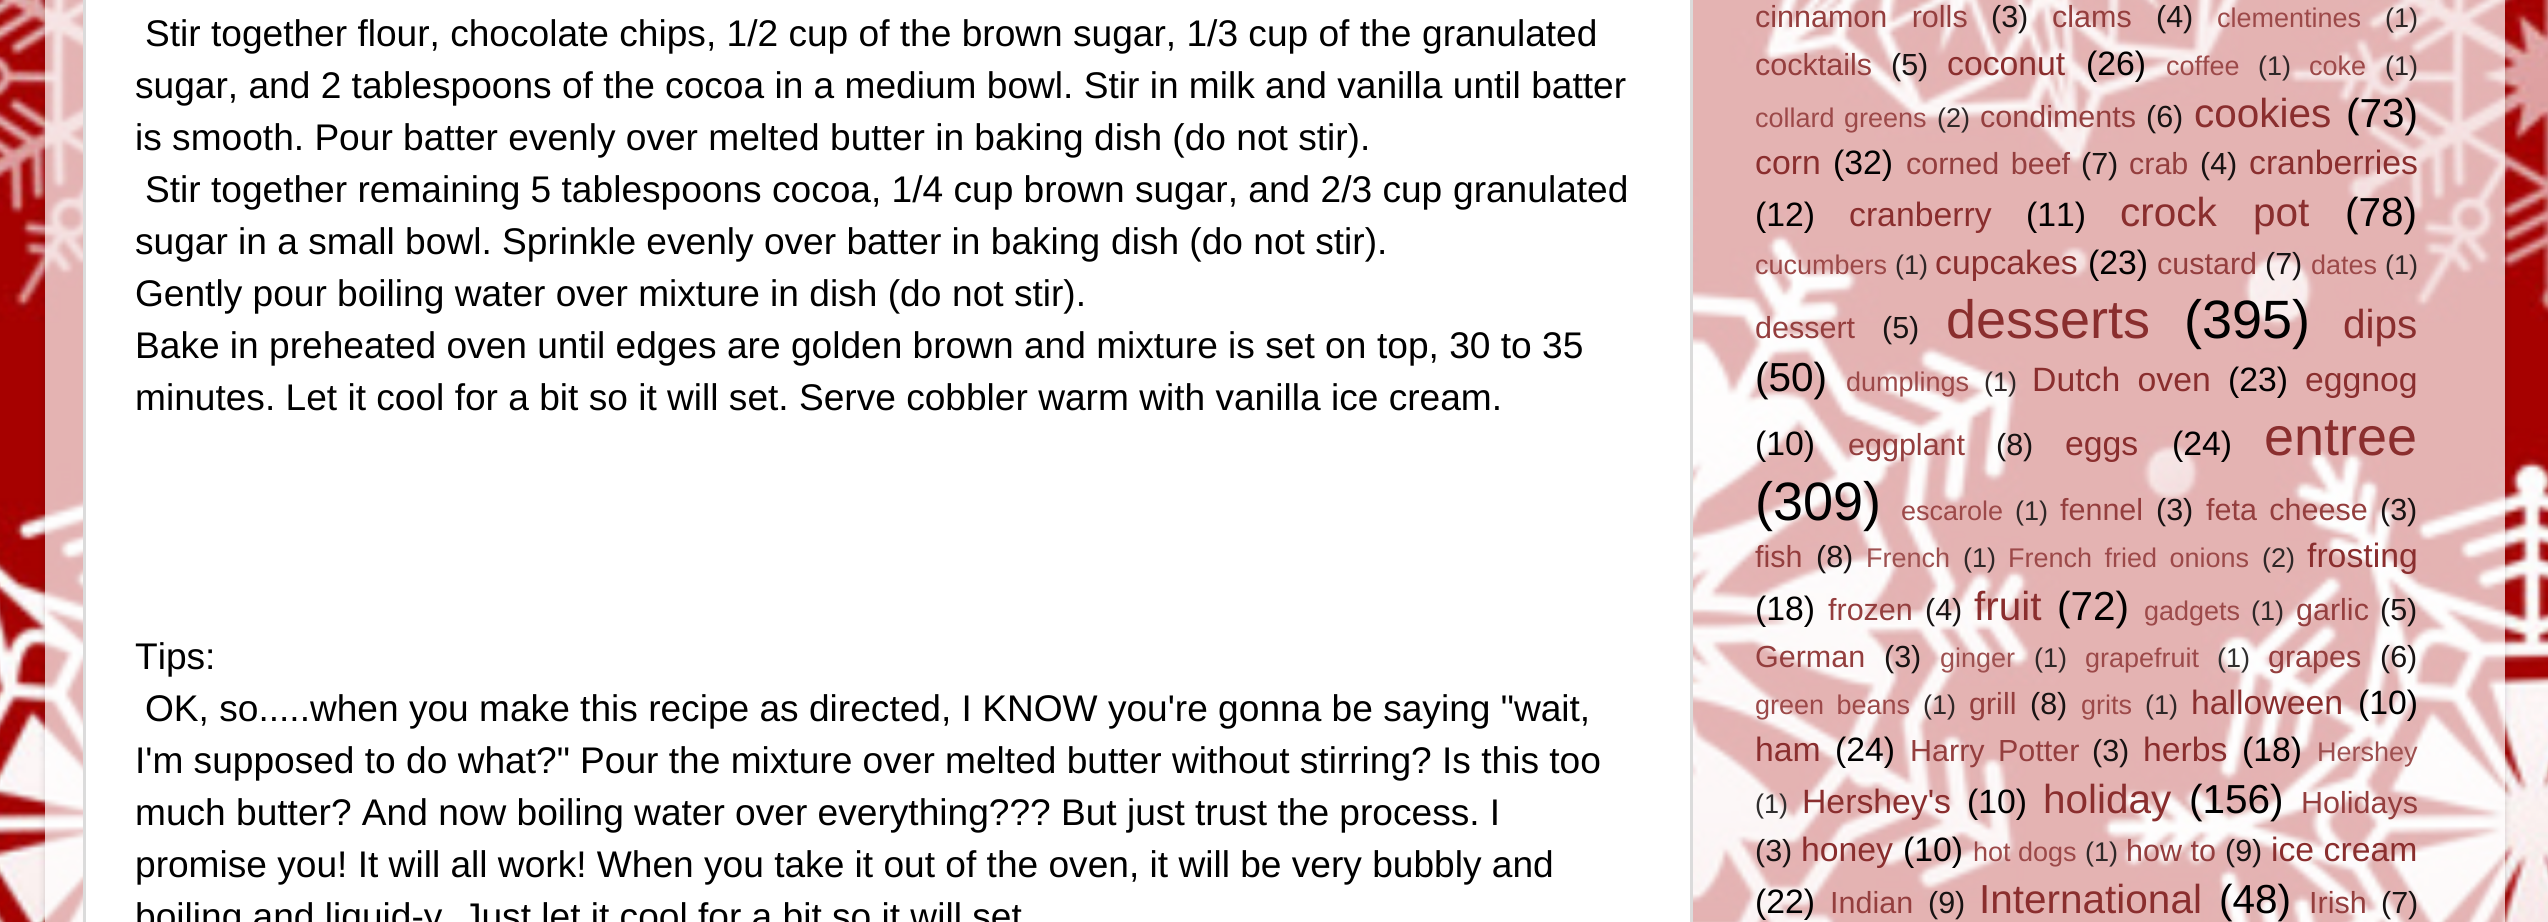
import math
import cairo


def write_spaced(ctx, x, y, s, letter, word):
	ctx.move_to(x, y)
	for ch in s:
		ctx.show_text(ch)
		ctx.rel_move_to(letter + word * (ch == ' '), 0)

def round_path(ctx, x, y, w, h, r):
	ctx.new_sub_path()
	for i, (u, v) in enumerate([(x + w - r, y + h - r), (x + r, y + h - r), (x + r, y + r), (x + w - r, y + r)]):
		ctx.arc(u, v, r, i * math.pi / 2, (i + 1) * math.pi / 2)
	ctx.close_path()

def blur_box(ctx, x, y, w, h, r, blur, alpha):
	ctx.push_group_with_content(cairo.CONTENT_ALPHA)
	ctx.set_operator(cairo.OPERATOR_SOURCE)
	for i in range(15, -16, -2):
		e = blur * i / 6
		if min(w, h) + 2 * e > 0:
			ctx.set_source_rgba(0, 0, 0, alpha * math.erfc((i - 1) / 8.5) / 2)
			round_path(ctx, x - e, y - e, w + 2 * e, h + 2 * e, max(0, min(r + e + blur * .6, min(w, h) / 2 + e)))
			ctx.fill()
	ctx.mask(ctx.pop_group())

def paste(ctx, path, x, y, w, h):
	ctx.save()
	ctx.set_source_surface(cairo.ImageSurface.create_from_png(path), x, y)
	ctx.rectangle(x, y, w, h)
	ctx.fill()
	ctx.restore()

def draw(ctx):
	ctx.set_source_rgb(1, 1, 1)
	ctx.paint()
	paste(ctx, 'media/1.png', 0, 0, 2548, 922)
	ctx.save()
	ctx.set_fill_rule(cairo.FILL_RULE_EVEN_ODD)
	ctx.new_path()
	ctx.move_to(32, 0)
	ctx.line_to(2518, 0)
	ctx.line_to(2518, 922)
	ctx.line_to(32, 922)
	ctx.close_path()
	ctx.move_to(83, -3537)
	ctx.line_to(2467, -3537)
	ctx.curve_to(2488, -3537, 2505, -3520, 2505, -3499)
	ctx.line_to(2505, 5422)
	ctx.curve_to(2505, 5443, 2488, 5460, 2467, 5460)
	ctx.line_to(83, 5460)
	ctx.curve_to(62, 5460, 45, 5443, 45, 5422)
	ctx.line_to(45, -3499)
	ctx.curve_to(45, -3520, 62, -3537, 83, -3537)
	ctx.close_path()
	ctx.clip()
	ctx.set_source_rgb(0, 0, 0)
	blur_box(ctx, 45, -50, 2460, 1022, 38, 4, 0.15)
	ctx.restore()
	ctx.set_source_rgb(1, 1, 1)
	ctx.rectangle(84.5, -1.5, 1607, 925)
	ctx.fill_preserve()
	ctx.set_source_rgb(0.859, 0.859, 0.859)
	ctx.set_line_width(3)
	ctx.stroke()
	ctx.select_font_face('Liberation Sans')
	ctx.set_font_size(37.1)
	ctx.set_source_rgb(0, 0, 0)
	for x, y, s in [
		(145, 46, 'Stir together flour, chocolate chips, 1/2 cup of the brown sugar, 1/3 cup of the'),
		(1422, 46, 'granulated'),
		(135, 98, 'sugar, and 2 tablespoons of the cocoa in a medium bowl. Stir in milk and vanilla until batter'),
		(135, 150, 'is smooth. Pour batter evenly over melted'),
		(830, 150, 'butter in baking dish (do not stir).'),
		(145, 202, 'Stir together remaining 5 tablespoons cocoa, 1/4 cup brown sugar, and 2/3 cup'),
		(1453, 202, 'granulated'),
		(135, 254, 'sugar in a small bowl. Sprinkle evenly over batter in baking'),
		(1111, 254, 'dish (do not stir).'),
		(135, 306, 'Gently pour boiling water over mixture in dish (do'),
		(952, 306, 'not stir).'),
		(135, 358, 'Bake in preheated oven until edges are golden brown and mixture is set on'),
		(1377, 358, 'top, 30 to 35'),
		(135, 410, 'minutes. Let it cool for a bit so it will set. Serve cobbler warm with vanilla ice cream.'),
		(135, 669, 'Tips:'),
		(145, 721, 'OK, so.....when you make this recipe as directed, I KNOW you\'re gonna be saying "wait,'),
		(135, 773, 'I\'m supposed to do what?" Pour the mixture over melted butter without stirring? Is this too'),
		(135, 825, 'much butter? And now boiling water over everything??? But just trust the process. I'),
		(135, 877, 'promise you! It will all work! When you take it out of the oven, it will be very bubbly and'),
		(135, 929, 'boiling and liquid-y. Just let it cool for a bit so it will set'),
	]:
		ctx.move_to(x, y)
		ctx.show_text(s)
	ctx.set_font_size(30.5)
	ctx.set_source_rgb(0.58, 0.243, 0.243)
	write_spaced(ctx, 1755, 27, 'cinnamon rolls', 0, 16)
	ctx.set_source_rgb(0.09, 0.078, 0.078)
	ctx.move_to(1991, 27)
	ctx.show_text('(3)')
	ctx.set_source_rgb(0.58, 0.243, 0.243)
	ctx.move_to(2052, 27)
	ctx.show_text('clams')
	ctx.set_source_rgb(0.09, 0.078, 0.078)
	ctx.move_to(2156, 27)
	ctx.show_text('(4)')
	ctx.set_font_size(27)
	ctx.set_source_rgb(0.612, 0.286, 0.286)
	ctx.move_to(2217, 27)
	ctx.show_text('clementines')
	ctx.set_source_rgb(0.184, 0.157, 0.157)
	ctx.move_to(2385, 27)
	ctx.show_text('(1)')
	ctx.set_font_size(30.5)
	ctx.set_source_rgb(0.58, 0.243, 0.243)
	ctx.move_to(1755, 75)
	ctx.show_text('cocktails')
	ctx.set_source_rgb(0.09, 0.078, 0.078)
	ctx.move_to(1891, 75)
	ctx.show_text('(5)')
	ctx.set_font_size(33.75)
	ctx.set_source_rgb(0.541, 0.18, 0.18)
	ctx.move_to(1947, 75)
	ctx.show_text('coconut')
	ctx.set_source_rgb(0, 0, 0)
	ctx.move_to(2086, 75)
	ctx.show_text('(26)')
	ctx.set_font_size(27)
	ctx.set_source_rgb(0.612, 0.286, 0.286)
	ctx.move_to(2166, 75)
	ctx.show_text('coffee')
	ctx.set_source_rgb(0.184, 0.157, 0.157)
	ctx.move_to(2258, 75)
	ctx.show_text('(1)')
	ctx.set_source_rgb(0.612, 0.286, 0.286)
	ctx.move_to(2309, 75)
	ctx.show_text('coke')
	ctx.set_source_rgb(0.184, 0.157, 0.157)
	ctx.move_to(2385, 75)
	ctx.show_text('(1)')
	ctx.set_source_rgb(0.612, 0.286, 0.286)
	write_spaced(ctx, 1755, 127, 'collard greens', 0, 2)
	ctx.set_source_rgb(0.184, 0.157, 0.157)
	ctx.move_to(1937, 127)
	ctx.show_text('(2)')
	ctx.set_font_size(30.5)
	ctx.set_source_rgb(0.58, 0.243, 0.243)
	ctx.move_to(1980, 127)
	ctx.show_text('condiments')
	ctx.set_source_rgb(0.09, 0.078, 0.078)
	ctx.move_to(2146, 127)
	ctx.show_text('(6)')
	ctx.set_font_size(40.5)
	ctx.set_source_rgb(0.541, 0.18, 0.18)
	ctx.move_to(2194, 127)
	ctx.show_text('cookies')
	ctx.set_source_rgb(0, 0, 0)
	ctx.move_to(2346, 127)
	ctx.show_text('(73)')
	ctx.set_font_size(33.75)
	ctx.set_source_rgb(0.541, 0.18, 0.18)
	ctx.move_to(1755, 174)
	ctx.show_text('corn')
	ctx.set_source_rgb(0, 0, 0)
	ctx.move_to(1833, 174)
	ctx.show_text('(32)')
	ctx.set_font_size(30.5)
	ctx.set_source_rgb(0.58, 0.243, 0.243)
	write_spaced(ctx, 1906, 174, 'corned beef', 0, 3)
	ctx.set_source_rgb(0.09, 0.078, 0.078)
	ctx.move_to(2081, 174)
	ctx.show_text('(7)')
	ctx.set_source_rgb(0.58, 0.243, 0.243)
	ctx.move_to(2129, 174)
	ctx.show_text('crab')
	ctx.set_source_rgb(0.09, 0.078, 0.078)
	ctx.move_to(2200, 174)
	ctx.show_text('(4)')
	ctx.set_font_size(33.75)
	ctx.set_source_rgb(0.541, 0.18, 0.18)
	ctx.move_to(2249, 174)
	ctx.show_text('cranberries')
	ctx.set_source_rgb(0, 0, 0)
	ctx.move_to(1755, 226)
	ctx.show_text('(12)')
	ctx.set_source_rgb(0.541, 0.18, 0.18)
	ctx.move_to(1849, 226)
	ctx.show_text('cranberry')
	ctx.set_source_rgb(0, 0, 0)
	ctx.move_to(2026, 226)
	ctx.show_text('(11)')
	ctx.set_font_size(40.5)
	ctx.set_source_rgb(0.541, 0.18, 0.18)
	write_spaced(ctx, 2120, 226, 'crock pot', 0, 25)
	ctx.set_source_rgb(0, 0, 0)
	ctx.move_to(2345, 226)
	ctx.show_text('(78)')
	ctx.set_font_size(27)
	ctx.set_source_rgb(0.612, 0.286, 0.286)
	ctx.move_to(1755, 274)
	ctx.show_text('cucumbers')
	ctx.set_source_rgb(0.184, 0.157, 0.157)
	ctx.move_to(1895, 274)
	ctx.show_text('(1)')
	ctx.set_font_size(33.75)
	ctx.set_source_rgb(0.541, 0.18, 0.18)
	ctx.move_to(1935, 274)
	ctx.show_text('cupcakes')
	ctx.set_source_rgb(0, 0, 0)
	ctx.move_to(2088, 274)
	ctx.show_text('(23)')
	ctx.set_font_size(30.5)
	ctx.set_source_rgb(0.58, 0.243, 0.243)
	ctx.move_to(2157, 274)
	ctx.show_text('custard')
	ctx.set_source_rgb(0.09, 0.078, 0.078)
	ctx.move_to(2265, 274)
	ctx.show_text('(7)')
	ctx.set_font_size(27)
	ctx.set_source_rgb(0.612, 0.286, 0.286)
	ctx.move_to(2311, 274)
	ctx.show_text('dates')
	ctx.set_source_rgb(0.184, 0.157, 0.157)
	ctx.move_to(2385, 274)
	ctx.show_text('(1)')
	ctx.set_font_size(30.5)
	ctx.set_source_rgb(0.58, 0.243, 0.243)
	ctx.move_to(1755, 338)
	ctx.show_text('dessert')
	ctx.set_source_rgb(0.09, 0.078, 0.078)
	ctx.move_to(1882, 338)
	ctx.show_text('(5)')
	ctx.set_font_size(54)
	ctx.set_source_rgb(0.541, 0.18, 0.18)
	ctx.move_to(1946, 338)
	ctx.show_text('desserts')
	ctx.set_source_rgb(0, 0, 0)
	ctx.move_to(2184, 338)
	ctx.show_text('(395)')
	ctx.set_font_size(40.5)
	ctx.set_source_rgb(0.541, 0.18, 0.18)
	ctx.move_to(2343, 338)
	ctx.show_text('dips')
	ctx.set_source_rgb(0, 0, 0)
	ctx.move_to(1755, 391)
	ctx.show_text('(50)')
	ctx.set_font_size(27)
	ctx.set_source_rgb(0.612, 0.286, 0.286)
	ctx.move_to(1846, 391)
	ctx.show_text('dumplings')
	ctx.set_source_rgb(0.184, 0.157, 0.157)
	ctx.move_to(1984, 391)
	ctx.show_text('(1)')
	ctx.set_font_size(33.75)
	ctx.set_source_rgb(0.541, 0.18, 0.18)
	write_spaced(ctx, 2032, 391, 'Dutch oven', 0, 8)
	ctx.set_source_rgb(0, 0, 0)
	ctx.move_to(2228, 391)
	ctx.show_text('(23)')
	ctx.set_source_rgb(0.541, 0.18, 0.18)
	ctx.move_to(2305, 391)
	ctx.show_text('eggnog')
	ctx.set_source_rgb(0, 0, 0)
	ctx.move_to(1755, 455)
	ctx.show_text('(10)')
	ctx.set_font_size(30.5)
	ctx.set_source_rgb(0.58, 0.243, 0.243)
	ctx.move_to(1848, 455)
	ctx.show_text('eggplant')
	ctx.set_source_rgb(0.09, 0.078, 0.078)
	ctx.move_to(1996, 455)
	ctx.show_text('(8)')
	ctx.set_font_size(33.75)
	ctx.set_source_rgb(0.541, 0.18, 0.18)
	ctx.move_to(2065, 455)
	ctx.show_text('eggs')
	ctx.set_source_rgb(0, 0, 0)
	ctx.move_to(2172, 455)
	ctx.show_text('(24)')
	ctx.set_font_size(54)
	ctx.set_source_rgb(0.541, 0.18, 0.18)
	ctx.move_to(2264, 455)
	ctx.show_text('entree')
	ctx.set_source_rgb(0, 0, 0)
	ctx.move_to(1755, 520)
	ctx.show_text('(309)')
	ctx.set_font_size(27)
	ctx.set_source_rgb(0.612, 0.286, 0.286)
	ctx.move_to(1901, 520)
	ctx.show_text('escarole')
	ctx.set_source_rgb(0.184, 0.157, 0.157)
	ctx.move_to(2015, 520)
	ctx.show_text('(1)')
	ctx.set_font_size(30.5)
	ctx.set_source_rgb(0.58, 0.243, 0.243)
	ctx.move_to(2060, 520)
	ctx.show_text('fennel')
	ctx.set_source_rgb(0.09, 0.078, 0.078)
	ctx.move_to(2156, 520)
	ctx.show_text('(3)')
	ctx.set_source_rgb(0.58, 0.243, 0.243)
	write_spaced(ctx, 2206, 520, 'feta cheese', 0, 4)
	ctx.set_source_rgb(0.09, 0.078, 0.078)
	ctx.move_to(2380, 520)
	ctx.show_text('(3)')
	ctx.set_source_rgb(0.58, 0.243, 0.243)
	ctx.move_to(1755, 567)
	ctx.show_text('fish')
	ctx.set_source_rgb(0.09, 0.078, 0.078)
	ctx.move_to(1816, 567)
	ctx.show_text('(8)')
	ctx.set_font_size(27)
	ctx.set_source_rgb(0.62, 0.314, 0.314)
	ctx.move_to(1866, 567)
	ctx.show_text('French')
	ctx.set_source_rgb(0.184, 0.157, 0.157)
	ctx.move_to(1963, 567)
	ctx.show_text('(1)')
	ctx.set_source_rgb(0.612, 0.286, 0.286)
	write_spaced(ctx, 2008, 567, 'French fried onions', 0, 5)
	ctx.set_source_rgb(0.184, 0.157, 0.157)
	ctx.move_to(2262, 567)
	ctx.show_text('(2)')
	ctx.set_font_size(33.75)
	ctx.set_source_rgb(0.541, 0.18, 0.18)
	ctx.move_to(2307, 567)
	ctx.show_text('frosting')
	ctx.set_source_rgb(0, 0, 0)
	ctx.move_to(1755, 620)
	ctx.show_text('(18)')
	ctx.set_font_size(30.5)
	ctx.set_source_rgb(0.58, 0.243, 0.243)
	ctx.move_to(1828, 620)
	ctx.show_text('frozen')
	ctx.set_source_rgb(0.09, 0.078, 0.078)
	ctx.move_to(1925, 620)
	ctx.show_text('(4)')
	ctx.set_font_size(40.5)
	ctx.set_source_rgb(0.541, 0.18, 0.18)
	ctx.move_to(1974, 620)
	ctx.show_text('fruit')
	ctx.set_source_rgb(0, 0, 0)
	ctx.move_to(2057, 620)
	ctx.show_text('(72)')
	ctx.set_font_size(27)
	ctx.set_source_rgb(0.612, 0.286, 0.286)
	ctx.move_to(2144, 620)
	ctx.show_text('gadgets')
	ctx.set_source_rgb(0.184, 0.157, 0.157)
	ctx.move_to(2251, 620)
	ctx.show_text('(1)')
	ctx.set_font_size(30.5)
	ctx.set_source_rgb(0.58, 0.243, 0.243)
	ctx.move_to(2296, 620)
	ctx.show_text('garlic')
	ctx.set_source_rgb(0.09, 0.078, 0.078)
	ctx.move_to(2380, 620)
	ctx.show_text('(5)')
	ctx.set_source_rgb(0.58, 0.243, 0.243)
	ctx.move_to(1755, 667)
	ctx.show_text('German')
	ctx.set_source_rgb(0.09, 0.078, 0.078)
	ctx.move_to(1884, 667)
	ctx.show_text('(3)')
	ctx.set_font_size(27)
	ctx.set_source_rgb(0.62, 0.314, 0.314)
	ctx.move_to(1940, 667)
	ctx.show_text('ginger')
	ctx.set_source_rgb(0.184, 0.157, 0.157)
	ctx.move_to(2034, 667)
	ctx.show_text('(1)')
	ctx.set_source_rgb(0.612, 0.286, 0.286)
	ctx.move_to(2085, 667)
	ctx.show_text('grapefruit')
	ctx.set_source_rgb(0.192, 0.184, 0.184)
	ctx.move_to(2217, 667)
	ctx.show_text('(1)')
	ctx.set_font_size(30.5)
	ctx.set_source_rgb(0.58, 0.243, 0.243)
	ctx.move_to(2268, 667)
	ctx.show_text('grapes')
	ctx.set_source_rgb(0.09, 0.078, 0.078)
	ctx.move_to(2380, 667)
	ctx.show_text('(6)')
	ctx.set_font_size(27)
	ctx.set_source_rgb(0.612, 0.286, 0.286)
	write_spaced(ctx, 1755, 714, 'green beans', 0, 5)
	ctx.set_source_rgb(0.184, 0.157, 0.157)
	ctx.move_to(1923, 714)
	ctx.show_text('(1)')
	ctx.set_font_size(30.5)
	ctx.set_source_rgb(0.58, 0.243, 0.243)
	ctx.move_to(1969, 714)
	ctx.show_text('grill')
	ctx.set_source_rgb(0.09, 0.078, 0.078)
	ctx.move_to(2030, 714)
	ctx.show_text('(8)')
	ctx.set_font_size(27)
	ctx.set_source_rgb(0.612, 0.286, 0.286)
	ctx.move_to(2081, 714)
	ctx.show_text('grits')
	ctx.set_source_rgb(0.184, 0.157, 0.157)
	ctx.move_to(2145, 714)
	ctx.show_text('(1)')
	ctx.set_font_size(33.75)
	ctx.set_source_rgb(0.541, 0.18, 0.18)
	ctx.move_to(2191, 714)
	ctx.show_text('halloween')
	ctx.set_source_rgb(0, 0, 0)
	ctx.move_to(2358, 714)
	ctx.show_text('(10)')
	ctx.set_source_rgb(0.541, 0.18, 0.18)
	ctx.move_to(1755, 761)
	ctx.show_text('ham')
	ctx.set_source_rgb(0, 0, 0)
	ctx.move_to(1835, 761)
	ctx.show_text('(24)')
	ctx.set_font_size(30.5)
	ctx.set_source_rgb(0.58, 0.243, 0.243)
	write_spaced(ctx, 1910, 761, 'Harry Potter', 0, 5)
	ctx.set_source_rgb(0.09, 0.078, 0.078)
	ctx.move_to(2092, 761)
	ctx.show_text('(3)')
	ctx.set_font_size(33.75)
	ctx.set_source_rgb(0.541, 0.18, 0.18)
	ctx.move_to(2143, 761)
	ctx.show_text('herbs')
	ctx.set_source_rgb(0, 0, 0)
	ctx.move_to(2242, 761)
	ctx.show_text('(18)')
	ctx.set_font_size(27)
	ctx.set_source_rgb(0.62, 0.314, 0.314)
	ctx.move_to(2317, 761)
	ctx.show_text('Hershey')
	ctx.set_source_rgb(0.192, 0.184, 0.184)
	ctx.move_to(1755, 813)
	ctx.show_text('(1)')
	ctx.set_font_size(33.75)
	ctx.set_source_rgb(0.541, 0.18, 0.18)
	ctx.move_to(1802, 813)
	ctx.show_text('Hershey\'s')
	ctx.set_source_rgb(0, 0, 0)
	ctx.move_to(1967, 813)
	ctx.show_text('(10)')
	ctx.set_font_size(40.5)
	ctx.set_source_rgb(0.541, 0.18, 0.18)
	ctx.move_to(2043, 813)
	ctx.show_text('holiday')
	ctx.set_source_rgb(0, 0, 0)
	ctx.move_to(2189, 813)
	ctx.show_text('(156)')
	ctx.set_font_size(30.5)
	ctx.set_source_rgb(0.58, 0.243, 0.243)
	ctx.move_to(2301, 813)
	ctx.show_text('Holidays')
	ctx.set_source_rgb(0.09, 0.078, 0.078)
	ctx.move_to(1755, 861)
	ctx.show_text('(3)')
	ctx.set_font_size(33.75)
	ctx.set_source_rgb(0.541, 0.18, 0.18)
	ctx.move_to(1801, 861)
	ctx.show_text('honey')
	ctx.set_source_rgb(0, 0, 0)
	ctx.move_to(1903, 861)
	ctx.show_text('(10)')
	ctx.set_font_size(27)
	ctx.set_source_rgb(0.612, 0.286, 0.286)
	ctx.move_to(1973, 861)
	ctx.show_text('hot dogs')
	ctx.set_source_rgb(0.184, 0.157, 0.157)
	ctx.move_to(2085, 861)
	ctx.show_text('(1)')
	ctx.set_font_size(30.5)
	ctx.set_source_rgb(0.58, 0.243, 0.243)
	ctx.move_to(2126, 861)
	ctx.show_text('how to')
	ctx.set_source_rgb(0.09, 0.078, 0.078)
	ctx.move_to(2225, 861)
	ctx.show_text('(9)')
	ctx.set_font_size(33.75)
	ctx.set_source_rgb(0.541, 0.18, 0.18)
	ctx.move_to(2271, 861)
	ctx.show_text('ice cream')
	ctx.set_source_rgb(0, 0, 0)
	ctx.move_to(1755, 913)
	ctx.show_text('(22)')
	ctx.set_font_size(30.5)
	ctx.set_source_rgb(0.58, 0.243, 0.243)
	ctx.move_to(1830, 913)
	ctx.show_text('Indian')
	ctx.set_source_rgb(0.09, 0.078, 0.078)
	ctx.move_to(1928, 913)
	ctx.show_text('(9)')
	ctx.set_font_size(40.5)
	ctx.set_source_rgb(0.541, 0.18, 0.18)
	ctx.move_to(1979, 913)
	ctx.show_text('International')
	ctx.set_source_rgb(0, 0, 0)
	ctx.move_to(2219, 913)
	ctx.show_text('(48)')
	ctx.set_font_size(30.5)
	ctx.set_source_rgb(0.58, 0.243, 0.243)
	ctx.move_to(2309, 913)
	ctx.show_text('Irish')
	ctx.set_source_rgb(0.09, 0.078, 0.078)
	ctx.move_to(2381, 913)
	ctx.show_text('(7)')


surface = cairo.ImageSurface(cairo.FORMAT_RGB24, 2548, 922)
ctx = cairo.Context(surface)
options = cairo.FontOptions()
options.set_hint_metrics(cairo.HINT_METRICS_OFF)
options.set_hint_style(cairo.HINT_STYLE_NONE)
ctx.set_font_options(options)
ctx.set_miter_limit(4)
draw(ctx)
surface.write_to_png('image.png')
